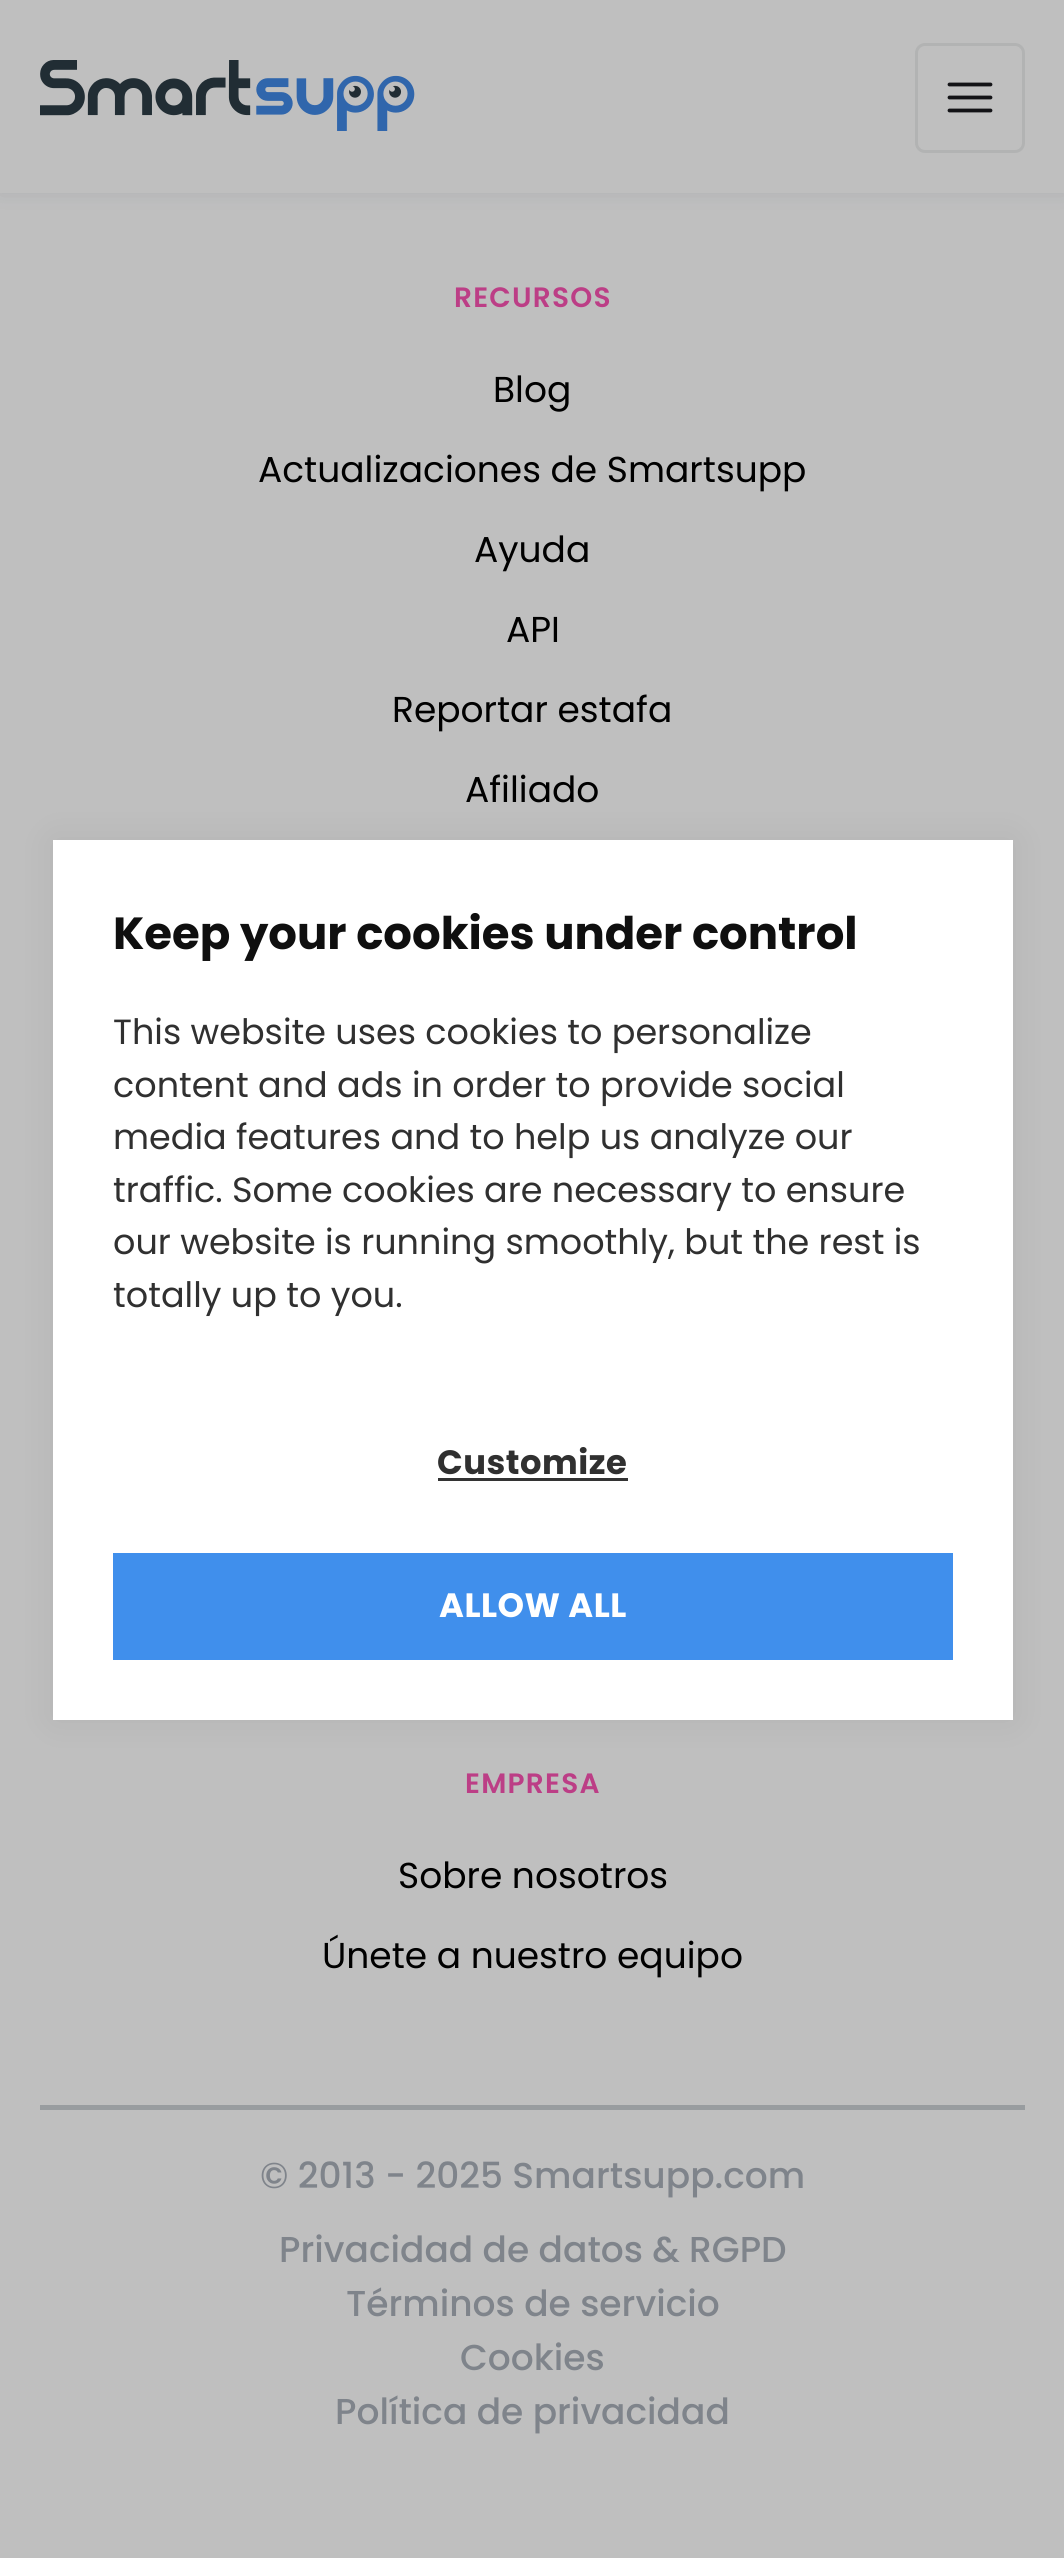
import math
import cairo


def write_spaced(ctx, x, y, s, letter, word):
	ctx.move_to(x, y)
	for ch in s:
		ctx.show_text(ch)
		ctx.rel_move_to(letter + word * (ch == ' '), 0)

def round_path(ctx, x, y, w, h, r):
	ctx.new_sub_path()
	for i, (u, v) in enumerate([(x + w - r, y + h - r), (x + r, y + h - r), (x + r, y + r), (x + w - r, y + r)]):
		ctx.arc(u, v, r, i * math.pi / 2, (i + 1) * math.pi / 2)
	ctx.close_path()

def blur_box(ctx, x, y, w, h, r, blur, alpha):
	ctx.push_group_with_content(cairo.CONTENT_ALPHA)
	ctx.set_operator(cairo.OPERATOR_SOURCE)
	for i in range(15, -16, -2):
		e = blur * i / 6
		if min(w, h) + 2 * e > 0:
			ctx.set_source_rgba(0, 0, 0, alpha * math.erfc((i - 1) / 8.5) / 2)
			round_path(ctx, x - e, y - e, w + 2 * e, h + 2 * e, max(0, min(r + e + blur * .6, min(w, h) / 2 + e)))
			ctx.fill()
	ctx.mask(ctx.pop_group())

def paste(ctx, path, x, y, w, h):
	ctx.save()
	ctx.set_source_surface(cairo.ImageSurface.create_from_png(path), x, y)
	ctx.rectangle(x, y, w, h)
	ctx.fill()
	ctx.restore()

def draw(ctx):
	ctx.set_source_rgb(0.749, 0.749, 0.749)
	ctx.paint()
	ctx.set_source_rgb(0.078, 0.137, 0.255)
	blur_box(ctx, 0, 0, 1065, 193, 0, 9, 0.1)
	ctx.set_source_rgb(0.749, 0.749, 0.749)
	ctx.rectangle(0, 0, 1064, 193)
	ctx.fill()
	paste(ctx, 'media/1.png', 40, 60, 375, 71)
	ctx.new_path()
	ctx.move_to(949.5, 84.5)
	ctx.line_to(990.5, 84.5)
	ctx.move_to(949.5, 97.5)
	ctx.line_to(990.5, 97.5)
	ctx.move_to(949.5, 110.5)
	ctx.line_to(990.5, 110.5)
	ctx.set_source_rgb(0.075, 0.078, 0.086)
	ctx.set_line_width(3.8)
	ctx.set_line_cap(cairo.LINE_CAP_ROUND)
	ctx.set_line_join(cairo.LINE_JOIN_ROUND)
	ctx.stroke()
	round_path(ctx, 916.5, 44.5, 107, 107, 8.5)
	ctx.set_source_rgb(0.698, 0.702, 0.702)
	ctx.set_line_width(3)
	ctx.set_line_cap(cairo.LINE_CAP_BUTT)
	ctx.set_line_join(cairo.LINE_JOIN_MITER)
	ctx.stroke()
	ctx.select_font_face('Poppins SemiBold')
	ctx.set_font_size(28)
	ctx.set_source_rgb(0.737, 0.243, 0.525)
	write_spaced(ctx, 454, 307, 'RECURSOS', 1.25, 0)
	ctx.select_font_face('Poppins')
	ctx.set_font_size(36)
	ctx.set_source_rgb(0, 0, 0)
	for x, y, s in [
		(493, 402, 'Blog'),
		(258, 482, 'Actualizaciones de Smartsupp'),
		(474, 562, 'Ayuda'),
		(506, 642, 'API'),
		(392, 722, 'Reportar estafa'),
		(465, 802, 'Afiliado'),
	]:
		ctx.move_to(x, y)
		ctx.show_text(s)
	ctx.select_font_face('Poppins SemiBold')
	ctx.set_font_size(28)
	ctx.set_source_rgb(0.737, 0.243, 0.525)
	write_spaced(ctx, 465, 1793, 'EMPRESA', 1.25, 0)
	ctx.select_font_face('Poppins')
	ctx.set_font_size(36)
	ctx.set_source_rgb(0, 0, 0)
	ctx.move_to(398, 1888)
	ctx.show_text('Sobre nosotros')
	ctx.move_to(322, 1968)
	ctx.show_text('Únete a nuestro equipo')
	ctx.set_source_rgb(0.596, 0.612, 0.624)
	ctx.rectangle(40, 2105, 985, 5)
	ctx.fill()
	ctx.select_font_face('Poppins Medium')
	ctx.set_source_rgb(0.498, 0.518, 0.545)
	for x, y, s in [
		(260, 2188, '© 2013 - 2025 Smartsupp.com'),
		(279, 2262, 'Privacidad de datos & RGPD'),
		(346, 2316, 'Términos de servicio'),
		(460, 2370, 'Cookies'),
		(335, 2424, 'Política de privacidad'),
	]:
		ctx.move_to(x, y)
		ctx.show_text(s)
	ctx.set_source_rgb(0.502, 0.502, 0.502)
	blur_box(ctx, 53, 840, 960, 880, 0, 19, 0.2)
	ctx.set_source_rgb(1, 1, 1)
	ctx.rectangle(53, 840, 960, 880)
	ctx.fill()
	ctx.select_font_face('Poppins', cairo.FONT_SLANT_NORMAL, cairo.FONT_WEIGHT_BOLD)
	ctx.set_font_size(45)
	ctx.set_source_rgb(0.059, 0.059, 0.059)
	ctx.move_to(113, 949)
	ctx.show_text('Keep your cookies under control')
	ctx.select_font_face('Poppins')
	ctx.set_font_size(35)
	ctx.set_source_rgb(0.188, 0.188, 0.188)
	for x, y, s in [
		(113, 1044, 'This website uses cookies to personalize'),
		(113, 1097, 'content and ads in order to provide social'),
		(113, 1149, 'media features and to help us analyze our'),
		(113, 1202, 'traffic. Some cookies are necessary to ensure'),
		(113, 1254, 'our website is running smoothly, but the rest is'),
		(113, 1307, 'totally up to you.'),
	]:
		ctx.move_to(x, y)
		ctx.show_text(s)
	ctx.select_font_face('Poppins', cairo.FONT_SLANT_NORMAL, cairo.FONT_WEIGHT_BOLD)
	ctx.set_font_size(33.75)
	write_spaced(ctx, 437, 1474, 'Customize', 0.5, 0)
	ctx.set_source_rgb(0.2, 0.2, 0.2)
	ctx.rectangle(438, 1478, 190, 3)
	ctx.fill()
	ctx.set_source_rgb(0.251, 0.561, 0.925)
	ctx.rectangle(113, 1553, 840, 107)
	ctx.fill()
	ctx.set_source_rgb(1, 1, 1)
	write_spaced(ctx, 439, 1617, 'ALLOW ALL', 0.5, 0)


surface = cairo.ImageSurface(cairo.FORMAT_RGB24, 1064, 2558)
ctx = cairo.Context(surface)
options = cairo.FontOptions()
options.set_hint_metrics(cairo.HINT_METRICS_OFF)
options.set_hint_style(cairo.HINT_STYLE_NONE)
ctx.set_font_options(options)
ctx.set_miter_limit(4)
draw(ctx)
surface.write_to_png('image.png')
